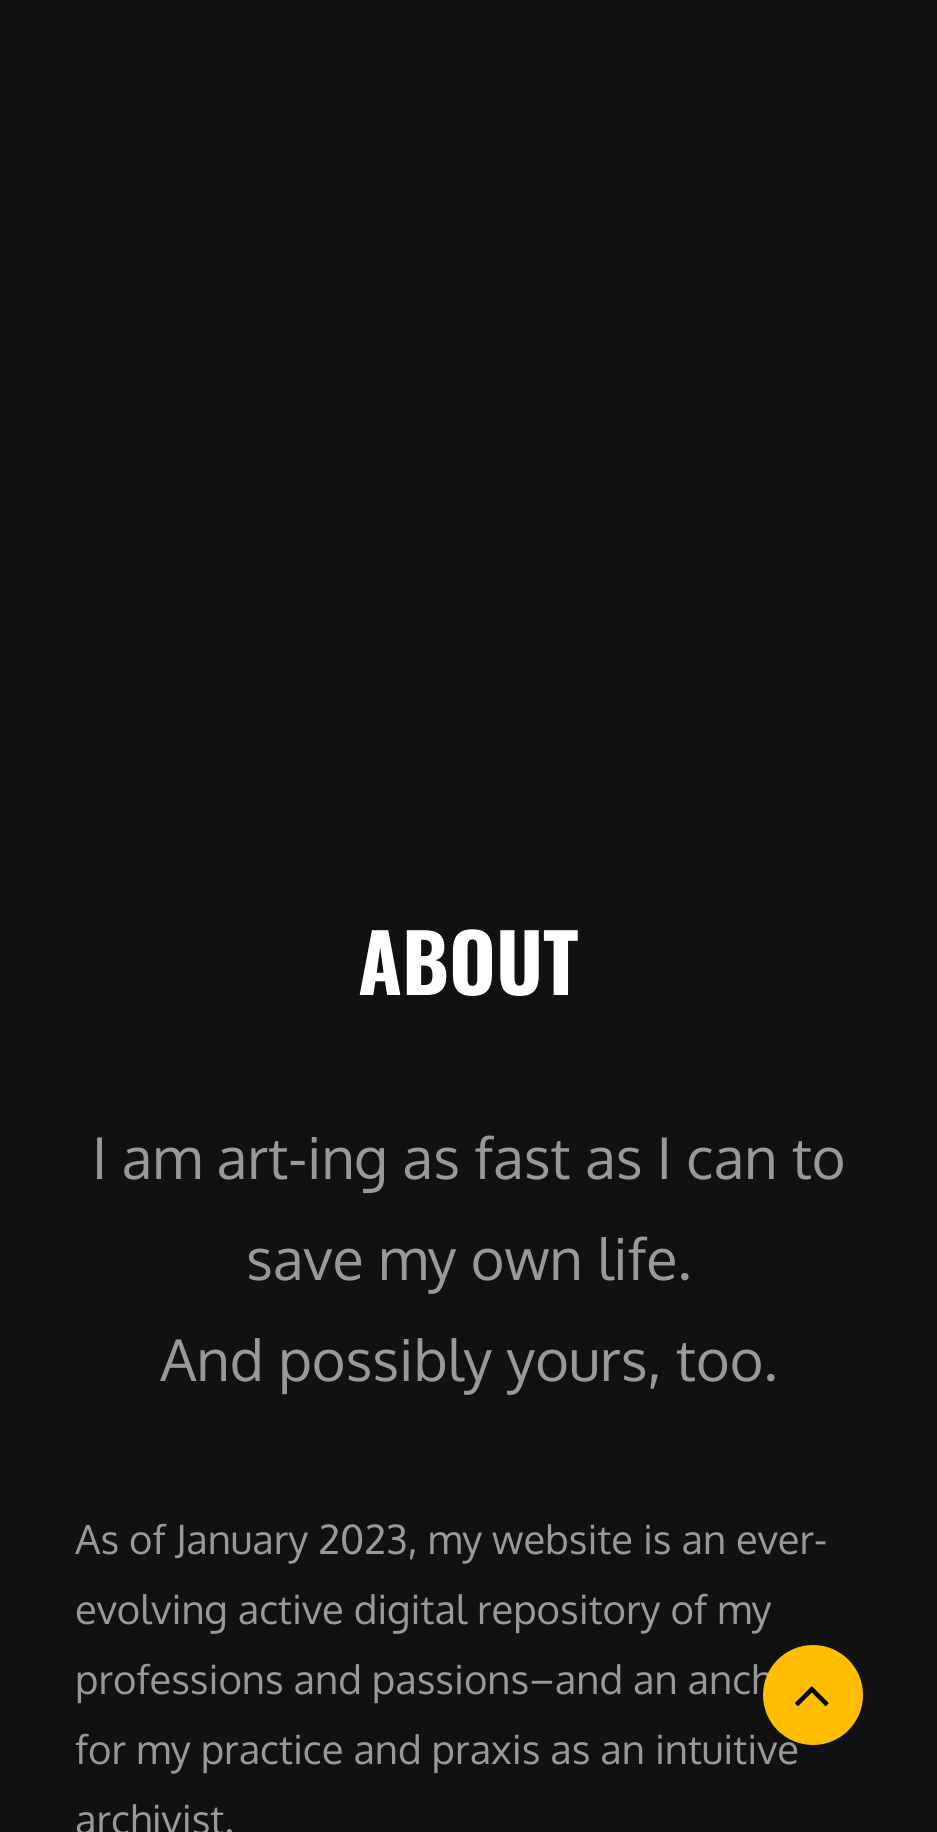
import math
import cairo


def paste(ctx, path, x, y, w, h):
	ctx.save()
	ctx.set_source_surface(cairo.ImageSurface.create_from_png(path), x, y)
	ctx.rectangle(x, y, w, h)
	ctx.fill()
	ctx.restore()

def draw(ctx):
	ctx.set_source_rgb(0.067, 0.067, 0.067)
	ctx.paint()
	ctx.select_font_face('Oswald', cairo.FONT_SLANT_NORMAL, cairo.FONT_WEIGHT_BOLD)
	ctx.set_font_size(80)
	ctx.set_source_rgb(1, 1, 1)
	ctx.move_to(358, 995)
	ctx.show_text('ABOUT')
	ctx.select_font_face('Oxygen')
	ctx.set_font_size(57.5)
	ctx.set_source_rgb(0.6, 0.6, 0.6)
	for x, y, s in [
		(92, 1179, 'I am art-ing as fast as I can to'),
		(246, 1280, 'save my own life.'),
		(160, 1381, 'And possibly yours, too.'),
	]:
		ctx.move_to(x, y)
		ctx.show_text(s)
	ctx.set_font_size(40)
	for x, y, s in [
		(75, 1554, 'As of January 2023, my website is an ever-'),
		(75, 1624, 'evolving active digital repository of my'),
		(75, 1694, 'professions and passions–and an anch'),
		(75, 1764, 'for my practice and praxis as an intuitive'),
		(75, 1834, 'archivist.'),
	]:
		ctx.move_to(x, y)
		ctx.show_text(s)
	ctx.set_source_rgb(1, 0.749, 0)
	ctx.new_path()
	ctx.arc(813, 1695, 50, 0, 2 * math.pi)
	ctx.fill()
	paste(ctx, 'media/1.png', 795, 1686, 34, 20)


surface = cairo.ImageSurface(cairo.FORMAT_RGB24, 937, 1832)
ctx = cairo.Context(surface)
options = cairo.FontOptions()
options.set_hint_metrics(cairo.HINT_METRICS_OFF)
options.set_hint_style(cairo.HINT_STYLE_NONE)
ctx.set_font_options(options)
ctx.set_miter_limit(4)
draw(ctx)
surface.write_to_png('image.png')
